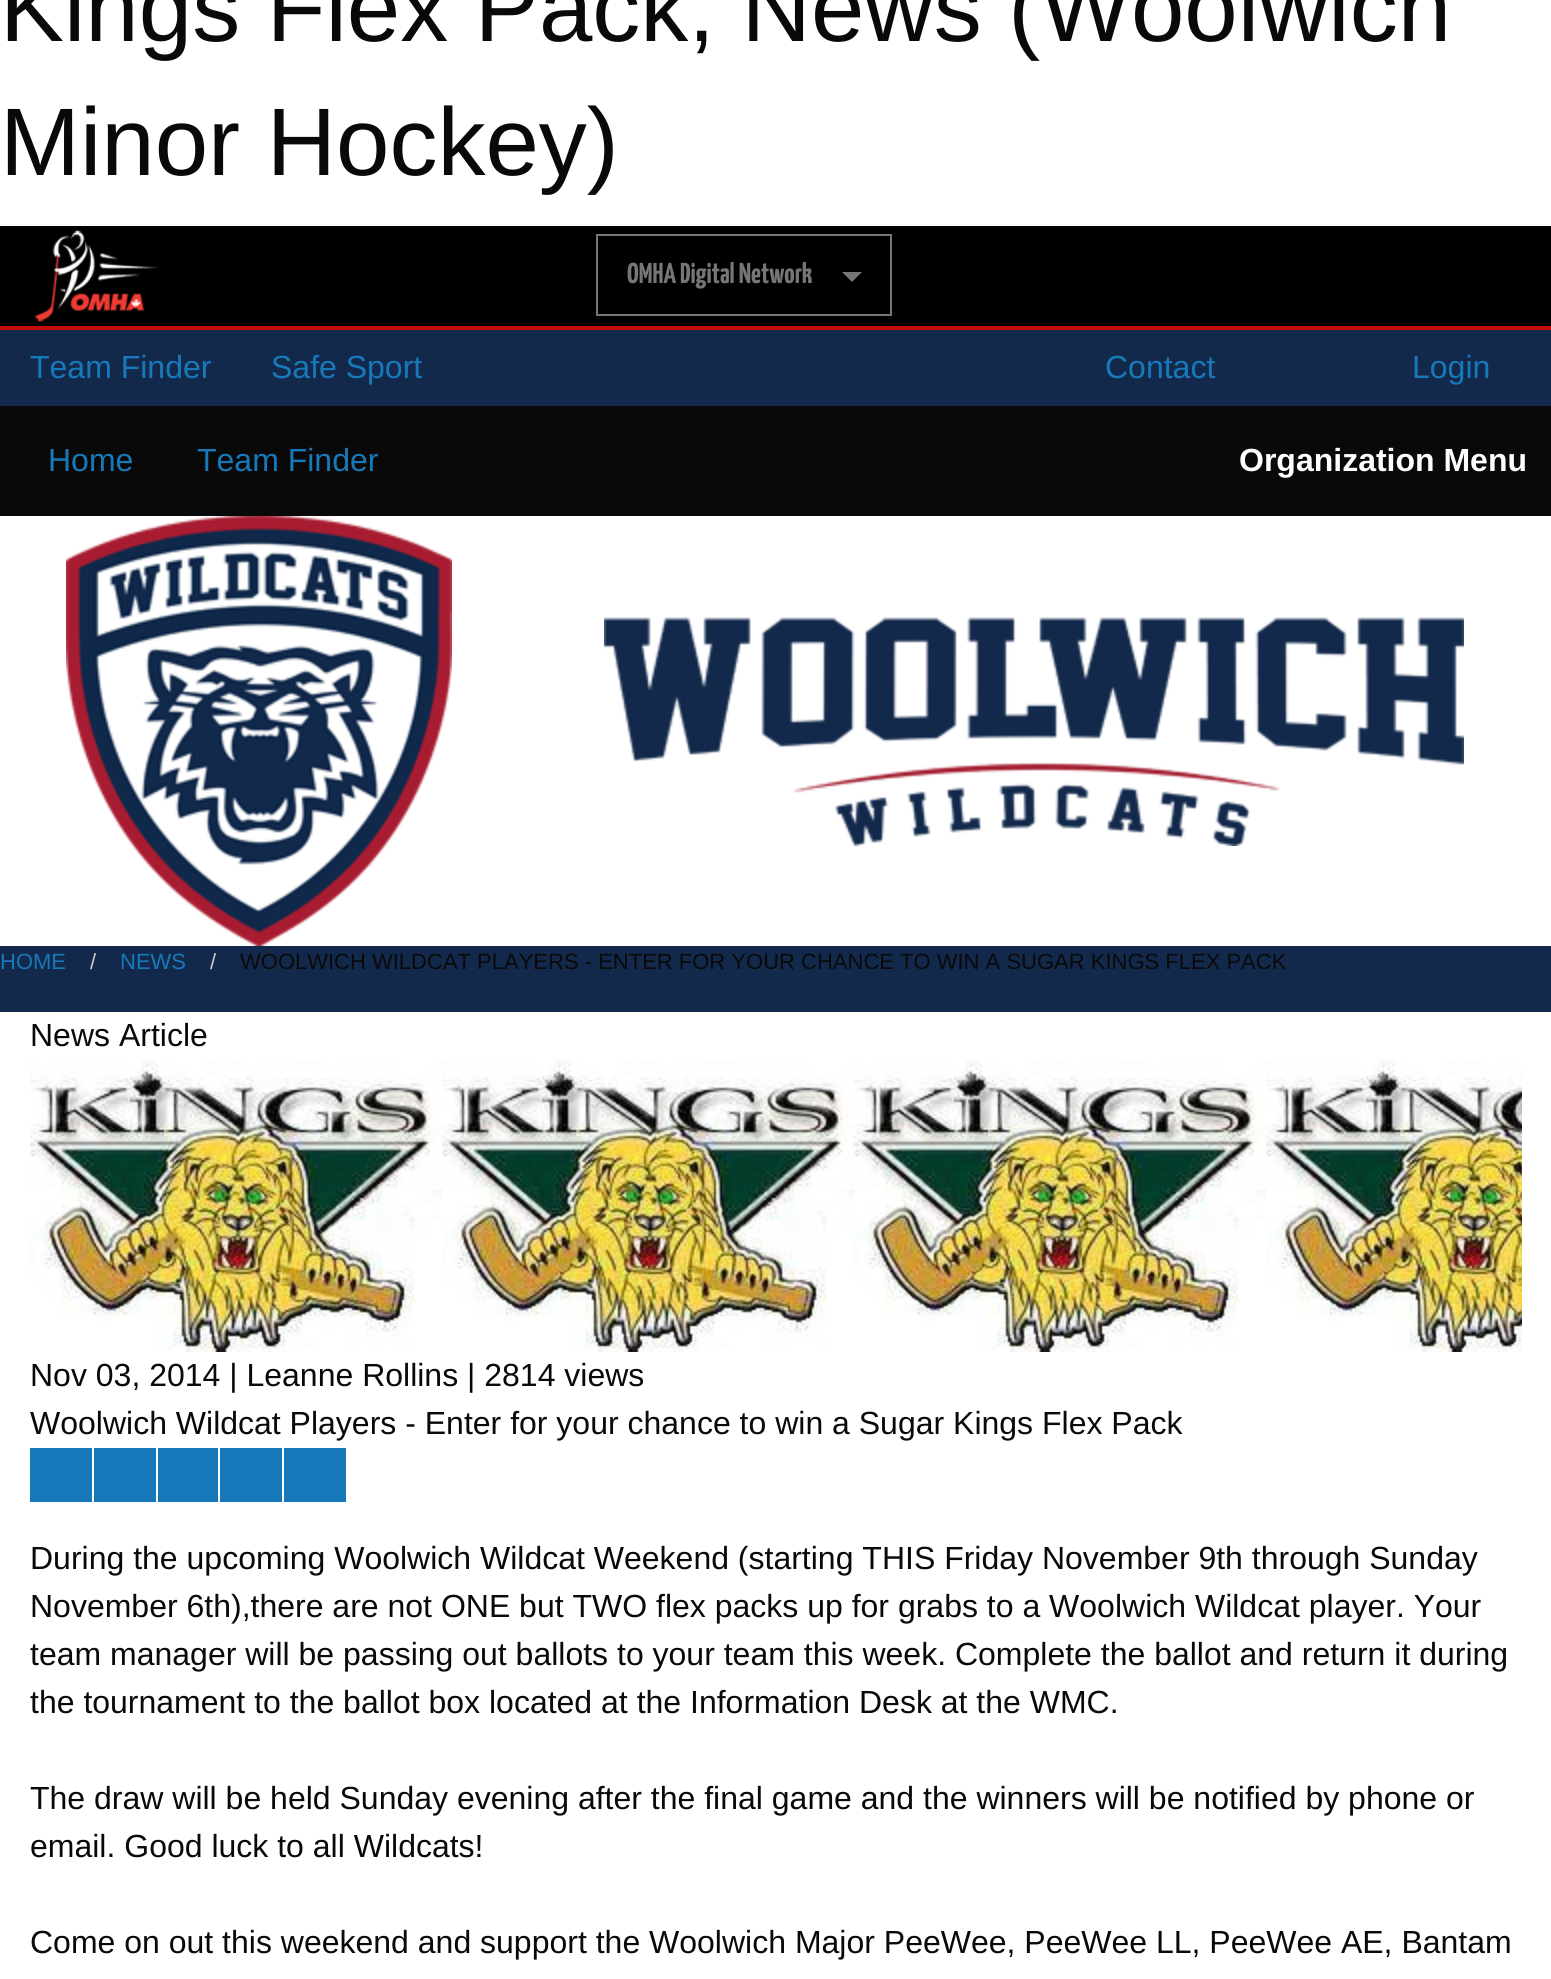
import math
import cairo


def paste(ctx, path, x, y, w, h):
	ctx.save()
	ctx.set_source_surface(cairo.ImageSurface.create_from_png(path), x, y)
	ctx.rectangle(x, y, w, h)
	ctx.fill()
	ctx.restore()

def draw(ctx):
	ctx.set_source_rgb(1, 1, 1)
	ctx.paint()
	ctx.select_font_face('Liberation Sans')
	ctx.set_font_size(96)
	ctx.set_source_rgb(0.039, 0.039, 0.039)
	ctx.move_to(0, 41)
	ctx.show_text('Kings Flex Pack, News (Woolwich')
	ctx.move_to(0, 175)
	ctx.show_text('Minor Hockey)')
	ctx.set_source_rgb(0, 0, 0)
	ctx.rectangle(0, 226, 1551, 100)
	ctx.fill()
	ctx.set_source_rgb(0.776, 0.047, 0.047)
	ctx.rectangle(0, 326, 1551, 4)
	ctx.fill()
	paste(ctx, 'media/1.png', 34, 230, 125, 92)
	ctx.rectangle(597, 235, 294, 80)
	ctx.set_source_rgb(0.463, 0.463, 0.463)
	ctx.stroke()
	ctx.select_font_face('Yanone Kaffeesatz ExtraLight')
	ctx.set_font_size(28.75)
	ctx.move_to(627, 283)
	ctx.show_text('OMHA Digital Network')
	ctx.new_path()
	ctx.move_to(842, 272)
	ctx.line_to(862, 272)
	ctx.line_to(852, 282)
	ctx.close_path()
	ctx.fill()
	ctx.set_source_rgb(0.075, 0.161, 0.298)
	ctx.rectangle(0, 330, 1551, 682)
	ctx.fill()
	ctx.select_font_face('Liberation Sans')
	ctx.set_font_size(32)
	ctx.set_source_rgb(0.09, 0.475, 0.729)
	for x, y, s in [
		(30, 378, 'Team Finder'),
		(271, 378, 'Safe Sport'),
		(1105, 378, 'Contact'),
		(1412, 378, 'Login'),
	]:
		ctx.move_to(x, y)
		ctx.show_text(s)
	ctx.set_source_rgb(0.039, 0.039, 0.039)
	ctx.rectangle(0, 406, 1551, 110)
	ctx.fill()
	ctx.set_source_rgb(0.09, 0.475, 0.729)
	ctx.move_to(48, 471)
	ctx.show_text('Home')
	ctx.move_to(197, 471)
	ctx.show_text('Team Finder')
	ctx.select_font_face('Liberation Sans', cairo.FONT_SLANT_NORMAL, cairo.FONT_WEIGHT_BOLD)
	ctx.set_source_rgb(0.996, 0.996, 0.996)
	ctx.move_to(1239, 471)
	ctx.show_text('Organization Menu')
	ctx.set_source_rgb(1, 1, 1)
	ctx.rectangle(0, 516, 1551, 430)
	ctx.fill()
	paste(ctx, 'media/2.png', 66, 516, 386, 430)
	paste(ctx, 'media/3.png', 604, 617, 860, 229)
	ctx.select_font_face('Liberation Sans')
	ctx.set_font_size(22)
	ctx.set_source_rgb(0.09, 0.475, 0.729)
	ctx.move_to(0, 969)
	ctx.show_text('HOME')
	ctx.set_source_rgb(0.792, 0.792, 0.792)
	ctx.move_to(90, 969)
	ctx.show_text('/')
	ctx.set_source_rgb(0.09, 0.475, 0.729)
	ctx.move_to(120, 969)
	ctx.show_text('NEWS')
	ctx.set_source_rgb(0.792, 0.792, 0.792)
	ctx.move_to(210, 969)
	ctx.show_text('/')
	ctx.set_source_rgb(0.039, 0.039, 0.039)
	ctx.move_to(240, 969)
	ctx.show_text('WOOLWICH WILDCAT PLAYERS - ENTER FOR YOUR CHANCE TO WIN A SUGAR KINGS FLEX PACK')
	ctx.set_font_size(32)
	ctx.move_to(30, 1046)
	ctx.show_text('News Article')
	paste(ctx, 'media/4.png', 30, 1060, 1492, 292)
	paste(ctx, 'media/5.png', 30, 1143, 412, 11)
	ctx.move_to(30, 1386)
	ctx.show_text('Nov 03, 2014 | Leanne Rollins | 2814 views')
	ctx.move_to(30, 1434)
	ctx.show_text('Woolwich Wildcat Players - Enter for your chance to win a Sugar Kings Flex Pack')
	ctx.set_source_rgb(0.09, 0.475, 0.729)
	ctx.rectangle(30, 1448, 62, 54)
	ctx.rectangle(94, 1448, 62, 54)
	ctx.rectangle(158, 1448, 60, 54)
	ctx.rectangle(220, 1448, 62, 54)
	ctx.rectangle(284, 1448, 62, 54)
	ctx.fill()
	ctx.set_source_rgb(0.039, 0.039, 0.039)
	for x, y, s in [
		(30, 1569, 'During the upcoming Woolwich Wildcat Weekend (starting THIS Friday November 9th through Sunday'),
		(30, 1617, 'November 6th),there are not ONE but TWO flex packs up for grabs to a Woolwich Wildcat player. Your'),
		(30, 1665, 'team manager will be passing out ballots to your team this week. Complete the ballot and return it during'),
		(30, 1713, 'the tournament to the ballot box located at the Information Desk at the WMC.'),
		(30, 1809, 'The draw will be held Sunday evening after the final game and the winners will be notified by phone or'),
		(30, 1857, 'email. Good luck to all Wildcats!'),
		(30, 1953, 'Come on out this weekend and support the Woolwich Major PeeWee, PeeWee LL, PeeWee AE, Bantam'),
	]:
		ctx.move_to(x, y)
		ctx.show_text(s)


surface = cairo.ImageSurface(cairo.FORMAT_RGB24, 1551, 1979)
ctx = cairo.Context(surface)
options = cairo.FontOptions()
options.set_hint_metrics(cairo.HINT_METRICS_OFF)
options.set_hint_style(cairo.HINT_STYLE_NONE)
ctx.set_font_options(options)
ctx.set_miter_limit(4)
draw(ctx)
surface.write_to_png('image.png')
